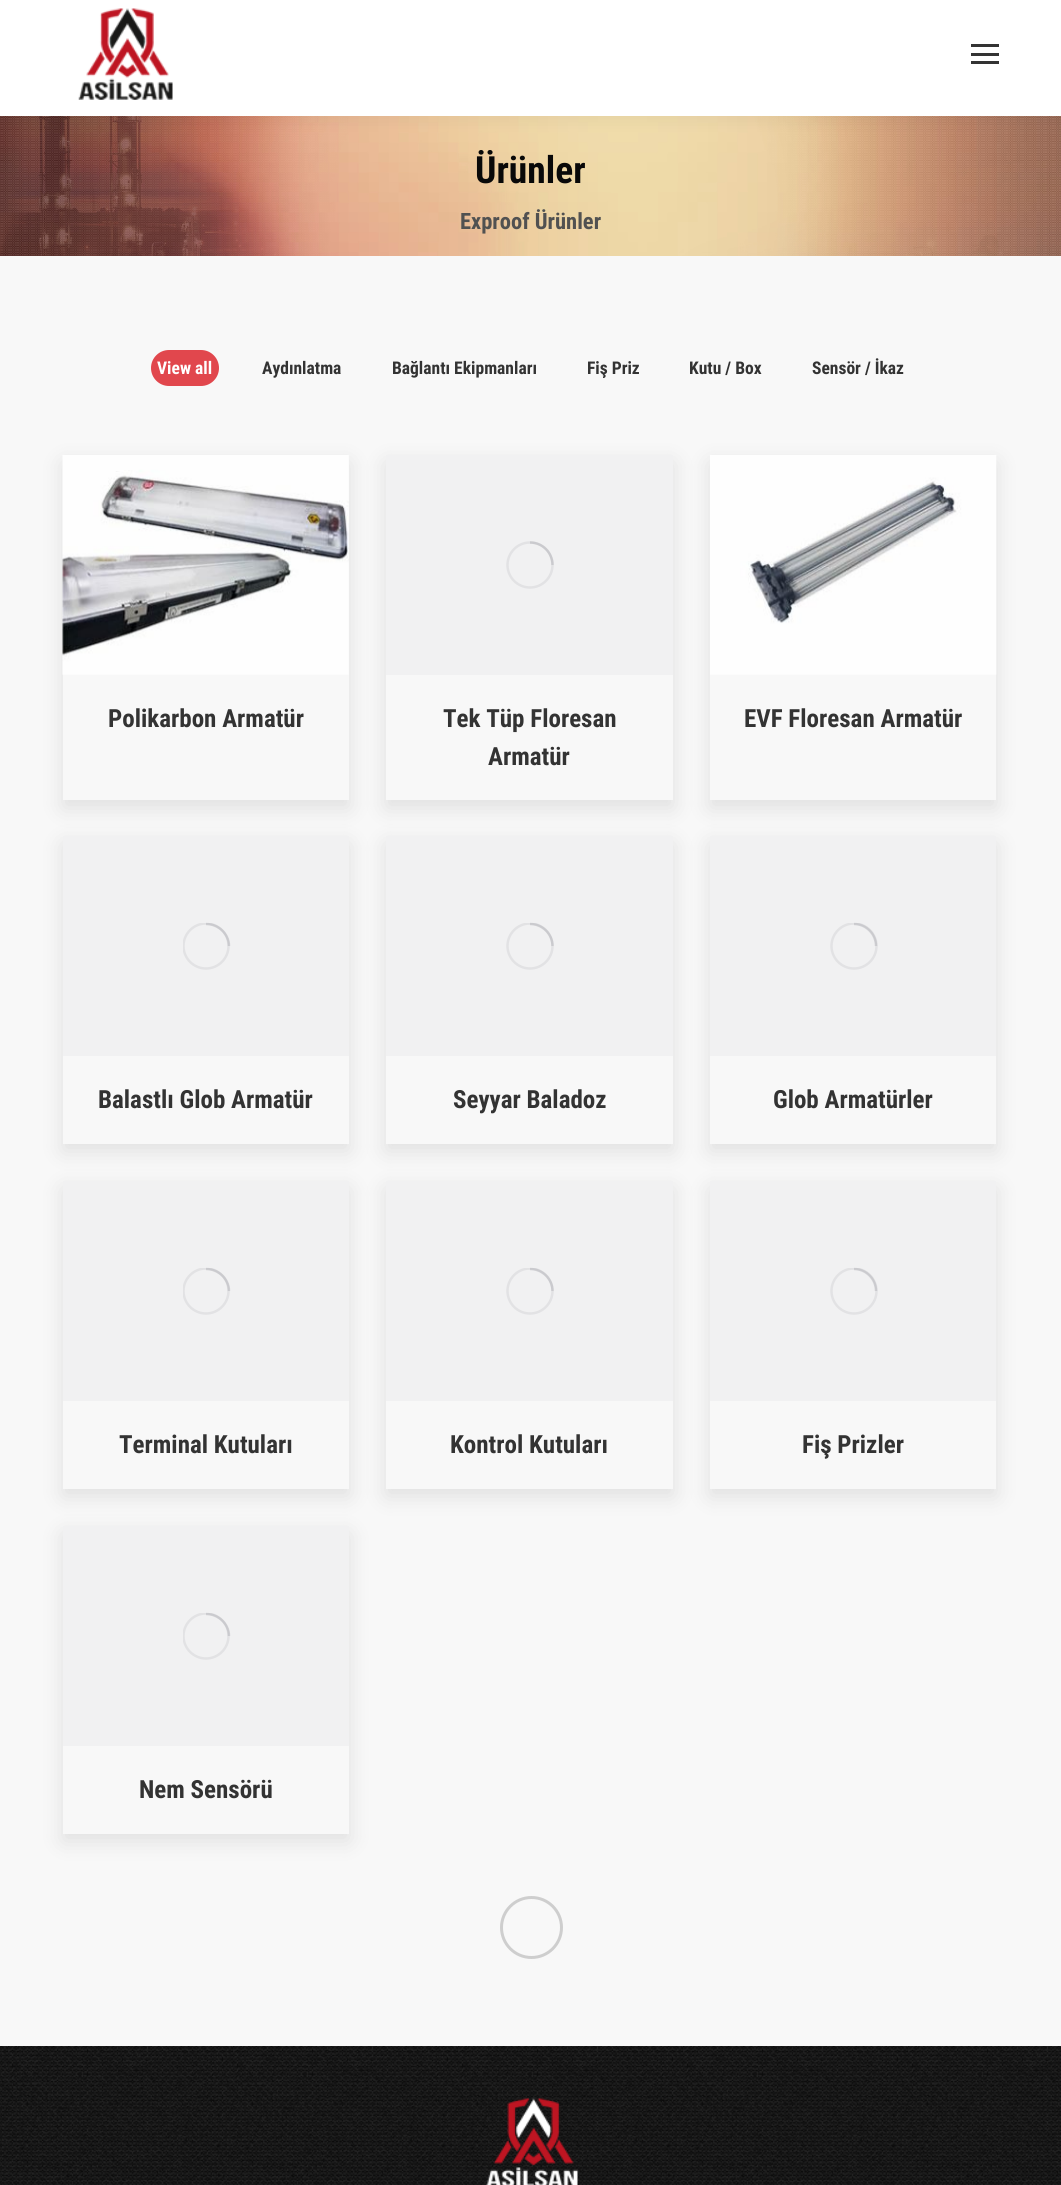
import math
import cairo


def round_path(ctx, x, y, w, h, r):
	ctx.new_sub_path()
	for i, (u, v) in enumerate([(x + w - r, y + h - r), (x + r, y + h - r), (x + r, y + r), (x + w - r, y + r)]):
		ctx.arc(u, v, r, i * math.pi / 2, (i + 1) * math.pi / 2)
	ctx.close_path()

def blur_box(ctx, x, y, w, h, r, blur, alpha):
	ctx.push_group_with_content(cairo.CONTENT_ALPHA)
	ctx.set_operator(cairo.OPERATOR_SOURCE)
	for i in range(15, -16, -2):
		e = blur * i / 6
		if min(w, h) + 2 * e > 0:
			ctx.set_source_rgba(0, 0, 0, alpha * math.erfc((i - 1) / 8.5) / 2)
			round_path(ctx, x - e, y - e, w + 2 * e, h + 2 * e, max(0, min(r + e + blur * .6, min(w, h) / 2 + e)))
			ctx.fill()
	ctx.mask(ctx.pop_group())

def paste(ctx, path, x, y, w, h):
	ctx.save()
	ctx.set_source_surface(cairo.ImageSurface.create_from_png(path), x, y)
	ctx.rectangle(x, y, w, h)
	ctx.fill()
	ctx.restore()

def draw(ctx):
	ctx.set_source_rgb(0.969, 0.969, 0.969)
	ctx.paint()
	paste(ctx, 'media/2.png', 0, 116, 1061, 140)
	ctx.set_source_rgb(0, 0, 0)
	blur_box(ctx, -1, -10, 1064, 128, 0, 9.5, 0.07)
	ctx.set_source_rgb(1, 1, 1)
	ctx.rectangle(0, 0, 1061, 116)
	ctx.fill()
	paste(ctx, 'media/1.png', 78, 8, 95, 92)
	ctx.set_source_rgb(0.2, 0.2, 0.2)
	ctx.rectangle(971, 53, 28, 3)
	ctx.rectangle(971, 44, 28, 3)
	ctx.rectangle(971, 61, 28, 3)
	ctx.fill()
	ctx.select_font_face('Roboto Condensed', cairo.FONT_SLANT_NORMAL, cairo.FONT_WEIGHT_BOLD)
	ctx.set_font_size(37.5)
	ctx.set_source_rgb(0.039, 0.039, 0.039)
	ctx.move_to(475, 183)
	ctx.show_text('Ürünler')
	ctx.set_font_size(22.5)
	ctx.set_source_rgb(0.318, 0.318, 0.318)
	ctx.move_to(460, 229)
	ctx.show_text('Exproof Ürünler')
	ctx.set_source_rgb(0.882, 0.278, 0.302)
	round_path(ctx, 151, 350, 68, 36, 18)
	ctx.fill()
	ctx.set_font_size(17.5)
	ctx.set_source_rgb(1, 1, 1)
	ctx.move_to(157, 374)
	ctx.show_text('View all')
	ctx.set_source_rgb(0.2, 0.2, 0.2)
	for x, y, s in [
		(262, 374, 'Aydınlatma'),
		(392, 374, 'Bağlantı Ekipmanları'),
		(587, 374, 'Fiş Priz'),
		(689, 374, 'Kutu / Box'),
		(812, 374, 'Sensör / İkaz'),
	]:
		ctx.move_to(x, y)
		ctx.show_text(s)
	ctx.set_source_rgb(0, 0, 0)
	blur_box(ctx, 63, 463, 286, 345, 0, 11, 0.1)
	ctx.set_source_rgb(0.969, 0.969, 0.969)
	ctx.rectangle(63, 455, 286, 345)
	ctx.fill()
	paste(ctx, 'media/3.png', 62, 455, 287, 220)
	ctx.set_font_size(25)
	ctx.set_source_rgb(0.2, 0.2, 0.2)
	ctx.move_to(108, 727)
	ctx.show_text('Polikarbon Armatür')
	ctx.set_source_rgb(0, 0, 0)
	blur_box(ctx, 386, 463, 287, 345, 0, 11, 0.1)
	ctx.set_source_rgb(0.969, 0.969, 0.969)
	ctx.rectangle(386, 675, 287, 125)
	ctx.fill()
	ctx.set_source_rgb(0.945, 0.945, 0.949)
	ctx.rectangle(386, 455, 287, 220)
	ctx.fill()
	ctx.arc(530, 565, 22.5, 0, 2 * math.pi)
	ctx.set_source_rgb(0.886, 0.886, 0.894)
	ctx.set_line_width(2.5)
	ctx.stroke()
	ctx.new_path()
	ctx.move_to(552.5, 565)
	ctx.curve_to(552.5, 552.5, 542.5, 542.5, 530, 542.5)
	ctx.set_source_rgba(0.522, 0.525, 0.549, 0.25)
	ctx.stroke()
	ctx.set_source_rgb(0.2, 0.2, 0.2)
	ctx.move_to(443, 727)
	ctx.show_text('Tek Tüp Floresan')
	ctx.move_to(488, 765)
	ctx.show_text('Armatür')
	ctx.save()
	ctx.set_fill_rule(cairo.FILL_RULE_EVEN_ODD)
	ctx.new_path()
	ctx.move_to(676, 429)
	ctx.line_to(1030, 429)
	ctx.line_to(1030, 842)
	ctx.line_to(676, 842)
	ctx.close_path()
	ctx.move_to(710, 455)
	ctx.line_to(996, 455)
	ctx.line_to(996, 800)
	ctx.line_to(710, 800)
	ctx.close_path()
	ctx.clip()
	ctx.set_source_rgb(0, 0, 0)
	blur_box(ctx, 710, 463, 286, 345, 0, 11, 0.1)
	ctx.restore()
	paste(ctx, 'media/4.png', 710, 455, 287, 220)
	ctx.move_to(744, 727)
	ctx.show_text('EVF Floresan Armatür')
	ctx.set_source_rgb(0, 0, 0)
	blur_box(ctx, 63, 844, 286, 307, 0, 11, 0.1)
	ctx.set_source_rgb(0.969, 0.969, 0.969)
	ctx.rectangle(63, 1056, 286, 88)
	ctx.fill()
	ctx.set_source_rgb(0.945, 0.945, 0.949)
	ctx.rectangle(63, 836, 286, 220)
	ctx.fill()
	ctx.save()
	ctx.rectangle(183, 923, 47, 47)
	ctx.clip()
	ctx.arc(206, 946, 22.5, 0, 2 * math.pi)
	ctx.set_source_rgb(0.886, 0.886, 0.894)
	ctx.stroke()
	ctx.restore()
	ctx.new_path()
	ctx.move_to(229, 946)
	ctx.curve_to(229, 934, 218.5, 924, 206, 924)
	ctx.set_source_rgba(0.522, 0.525, 0.549, 0.25)
	ctx.stroke()
	ctx.set_source_rgb(0.2, 0.2, 0.2)
	ctx.move_to(98, 1108)
	ctx.show_text('Balastlı Glob Armatür')
	ctx.set_source_rgb(0, 0, 0)
	blur_box(ctx, 386, 844, 287, 307, 0, 11, 0.1)
	ctx.set_source_rgb(0.969, 0.969, 0.969)
	ctx.rectangle(386, 1056, 287, 88)
	ctx.fill()
	ctx.set_source_rgb(0.945, 0.945, 0.949)
	ctx.rectangle(386, 836, 287, 220)
	ctx.fill()
	ctx.save()
	ctx.rectangle(506, 923, 48, 47)
	ctx.clip()
	ctx.arc(530, 946, 22.5, 0, 2 * math.pi)
	ctx.set_source_rgb(0.886, 0.886, 0.894)
	ctx.stroke()
	ctx.restore()
	ctx.new_path()
	ctx.move_to(552.5, 946)
	ctx.curve_to(552.5, 934, 542.5, 924, 530, 924)
	ctx.set_source_rgba(0.522, 0.525, 0.549, 0.25)
	ctx.stroke()
	ctx.set_source_rgb(0.2, 0.2, 0.2)
	ctx.move_to(453, 1108)
	ctx.show_text('Seyyar Baladoz')
	ctx.set_source_rgb(0, 0, 0)
	blur_box(ctx, 710, 844, 286, 307, 0, 11, 0.1)
	ctx.set_source_rgb(0.969, 0.969, 0.969)
	ctx.rectangle(710, 1056, 286, 88)
	ctx.fill()
	ctx.set_source_rgb(0.945, 0.945, 0.949)
	ctx.rectangle(710, 836, 286, 220)
	ctx.fill()
	ctx.save()
	ctx.rectangle(830, 923, 48, 47)
	ctx.clip()
	ctx.arc(854, 946, 22.5, 0, 2 * math.pi)
	ctx.set_source_rgb(0.886, 0.886, 0.894)
	ctx.stroke()
	ctx.restore()
	ctx.new_path()
	ctx.move_to(876, 946)
	ctx.curve_to(876, 934, 866, 924, 854, 924)
	ctx.set_source_rgba(0.522, 0.525, 0.549, 0.25)
	ctx.stroke()
	ctx.set_source_rgb(0.2, 0.2, 0.2)
	ctx.move_to(773, 1108)
	ctx.show_text('Glob Armatürler')
	ctx.set_source_rgb(0, 0, 0)
	blur_box(ctx, 63, 1189, 286, 307, 0, 11, 0.1)
	ctx.set_source_rgb(0.969, 0.969, 0.969)
	ctx.rectangle(63, 1401, 286, 88)
	ctx.fill()
	ctx.set_source_rgb(0.945, 0.945, 0.949)
	ctx.rectangle(63, 1181, 286, 220)
	ctx.fill()
	ctx.save()
	ctx.rectangle(183, 1268, 47, 47)
	ctx.clip()
	ctx.arc(206, 1291, 22.5, 0, 2 * math.pi)
	ctx.set_source_rgb(0.886, 0.886, 0.894)
	ctx.stroke()
	ctx.restore()
	ctx.new_path()
	ctx.move_to(229, 1291)
	ctx.curve_to(229, 1279, 218.5, 1269, 206, 1269)
	ctx.set_source_rgba(0.522, 0.525, 0.549, 0.25)
	ctx.stroke()
	ctx.set_source_rgb(0.2, 0.2, 0.2)
	ctx.move_to(119, 1453)
	ctx.show_text('Terminal Kutuları')
	ctx.set_source_rgb(0, 0, 0)
	blur_box(ctx, 386, 1189, 287, 307, 0, 11, 0.1)
	ctx.set_source_rgb(0.969, 0.969, 0.969)
	ctx.rectangle(386, 1401, 287, 88)
	ctx.fill()
	ctx.set_source_rgb(0.945, 0.945, 0.949)
	ctx.rectangle(386, 1181, 287, 220)
	ctx.fill()
	ctx.save()
	ctx.rectangle(506, 1268, 48, 47)
	ctx.clip()
	ctx.arc(530, 1291, 22.5, 0, 2 * math.pi)
	ctx.set_source_rgb(0.886, 0.886, 0.894)
	ctx.stroke()
	ctx.restore()
	ctx.new_path()
	ctx.move_to(552.5, 1291)
	ctx.curve_to(552.5, 1279, 542.5, 1269, 530, 1269)
	ctx.set_source_rgba(0.522, 0.525, 0.549, 0.25)
	ctx.stroke()
	ctx.set_source_rgb(0.2, 0.2, 0.2)
	ctx.move_to(450, 1453)
	ctx.show_text('Kontrol Kutuları')
	ctx.set_source_rgb(0, 0, 0)
	blur_box(ctx, 710, 1189, 286, 307, 0, 11, 0.1)
	ctx.set_source_rgb(0.969, 0.969, 0.969)
	ctx.rectangle(710, 1401, 286, 88)
	ctx.fill()
	ctx.set_source_rgb(0.945, 0.945, 0.949)
	ctx.rectangle(710, 1181, 286, 220)
	ctx.fill()
	ctx.save()
	ctx.rectangle(830, 1268, 48, 47)
	ctx.clip()
	ctx.arc(854, 1291, 22.5, 0, 2 * math.pi)
	ctx.set_source_rgb(0.886, 0.886, 0.894)
	ctx.stroke()
	ctx.restore()
	ctx.new_path()
	ctx.move_to(876, 1291)
	ctx.curve_to(876, 1279, 866, 1269, 854, 1269)
	ctx.set_source_rgba(0.522, 0.525, 0.549, 0.25)
	ctx.stroke()
	ctx.set_source_rgb(0.2, 0.2, 0.2)
	ctx.move_to(802, 1453)
	ctx.show_text('Fiş Prizler')
	ctx.set_source_rgb(0, 0, 0)
	blur_box(ctx, 63, 1534, 286, 307, 0, 11, 0.1)
	ctx.set_source_rgb(0.969, 0.969, 0.969)
	ctx.rectangle(63, 1746, 286, 88)
	ctx.fill()
	ctx.set_source_rgb(0.945, 0.945, 0.949)
	ctx.rectangle(63, 1526, 286, 220)
	ctx.fill()
	ctx.save()
	ctx.rectangle(183, 1613, 47, 47)
	ctx.clip()
	ctx.arc(206, 1636, 22.5, 0, 2 * math.pi)
	ctx.set_source_rgb(0.886, 0.886, 0.894)
	ctx.stroke()
	ctx.restore()
	ctx.new_path()
	ctx.move_to(229, 1636)
	ctx.curve_to(229, 1624, 218.5, 1614, 206, 1614)
	ctx.set_source_rgba(0.522, 0.525, 0.549, 0.25)
	ctx.stroke()
	ctx.set_source_rgb(0.2, 0.2, 0.2)
	ctx.move_to(139, 1798)
	ctx.show_text('Nem Sensörü')
	ctx.new_path()
	ctx.arc(531.5, 1927.5, 30, 0, 2 * math.pi)
	ctx.set_source_rgb(0.808, 0.808, 0.808)
	ctx.set_line_width(3)
	ctx.stroke()
	paste(ctx, 'media/5.png', 0, 2046, 1061, 139)
	paste(ctx, 'media/6.png', 486, 2098, 92, 87)


surface = cairo.ImageSurface(cairo.FORMAT_RGB24, 1061, 2185)
ctx = cairo.Context(surface)
options = cairo.FontOptions()
options.set_hint_metrics(cairo.HINT_METRICS_OFF)
options.set_hint_style(cairo.HINT_STYLE_NONE)
ctx.set_font_options(options)
ctx.set_miter_limit(4)
draw(ctx)
surface.write_to_png('image.png')
